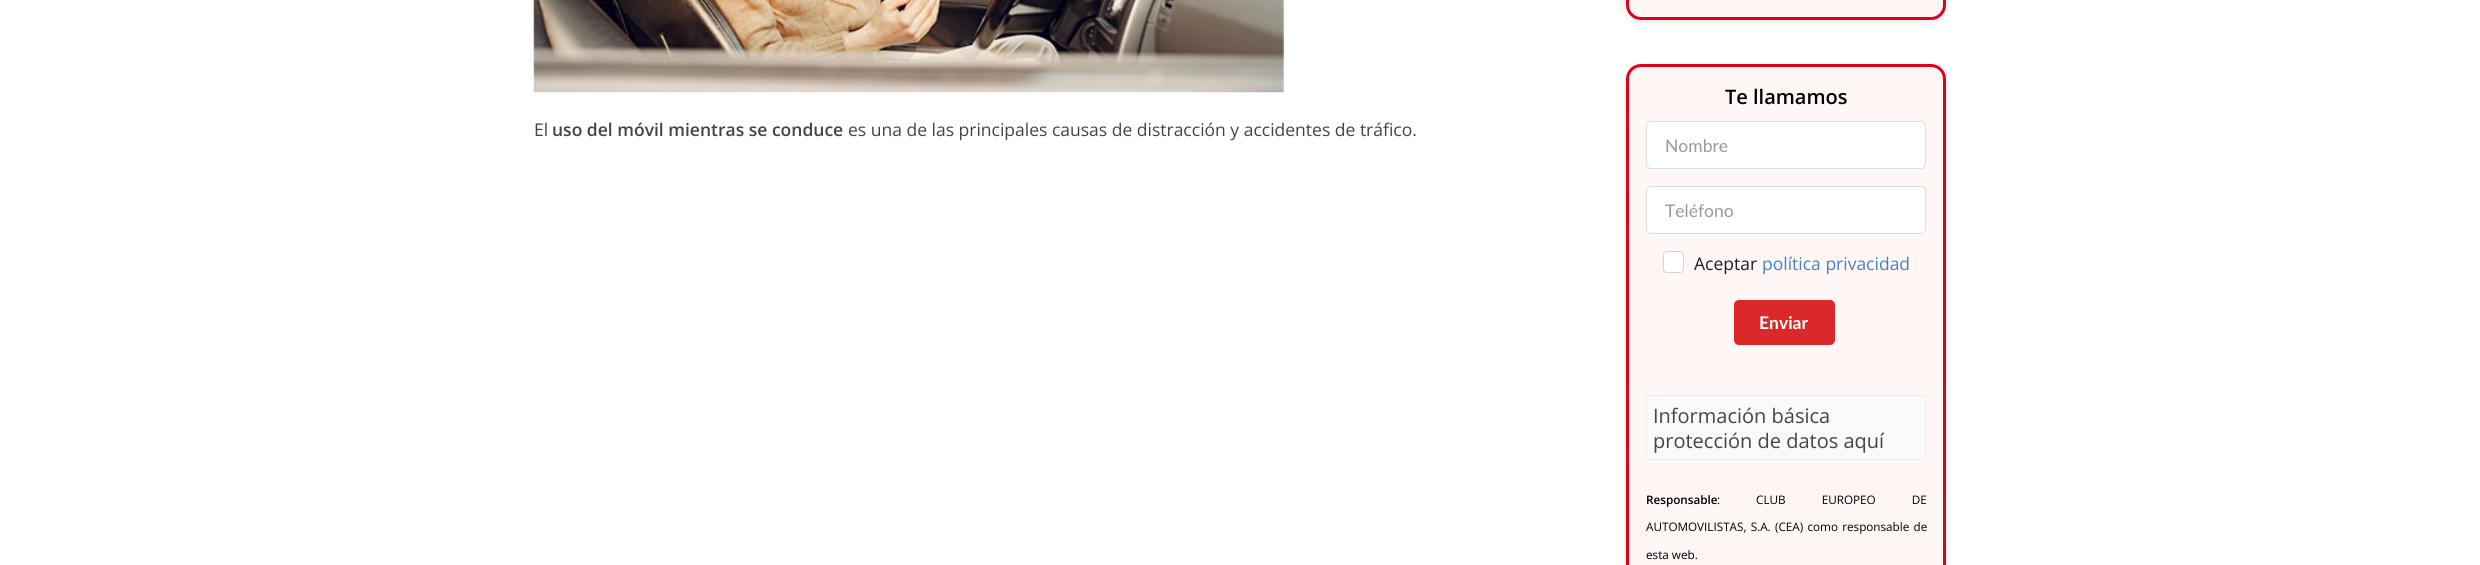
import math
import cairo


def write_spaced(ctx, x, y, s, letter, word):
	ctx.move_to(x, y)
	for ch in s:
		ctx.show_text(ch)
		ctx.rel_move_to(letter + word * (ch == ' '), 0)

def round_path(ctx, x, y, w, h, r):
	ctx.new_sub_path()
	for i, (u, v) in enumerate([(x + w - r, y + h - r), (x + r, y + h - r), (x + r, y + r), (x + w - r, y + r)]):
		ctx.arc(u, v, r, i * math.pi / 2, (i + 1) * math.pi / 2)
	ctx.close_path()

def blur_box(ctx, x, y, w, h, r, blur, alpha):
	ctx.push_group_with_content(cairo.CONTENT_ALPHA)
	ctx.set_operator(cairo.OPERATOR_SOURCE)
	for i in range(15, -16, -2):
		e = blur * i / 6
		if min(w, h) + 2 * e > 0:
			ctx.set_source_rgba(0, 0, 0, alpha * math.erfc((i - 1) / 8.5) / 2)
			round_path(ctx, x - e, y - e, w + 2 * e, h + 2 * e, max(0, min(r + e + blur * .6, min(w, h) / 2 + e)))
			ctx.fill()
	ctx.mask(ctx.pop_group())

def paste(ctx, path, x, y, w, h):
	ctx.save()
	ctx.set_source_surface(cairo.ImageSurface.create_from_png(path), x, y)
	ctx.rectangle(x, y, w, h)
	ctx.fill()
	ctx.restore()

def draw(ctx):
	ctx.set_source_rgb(1, 1, 1)
	ctx.paint()
	paste(ctx, 'media/1.png', 533, 0, 751, 93)
	ctx.select_font_face('Open Sans')
	ctx.set_font_size(17.5)
	ctx.set_source_rgb(0.267, 0.267, 0.267)
	ctx.move_to(534, 136)
	ctx.show_text('El')
	ctx.select_font_face('Open Sans SemiBold')
	ctx.move_to(552, 136)
	ctx.show_text('uso del móvil mientras se conduce')
	ctx.select_font_face('Open Sans')
	ctx.move_to(848, 136)
	ctx.show_text('es una de las principales causas de distracción y accidentes de tráfico.')
	ctx.set_source_rgb(0, 0, 0)
	blur_box(ctx, 1626, -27, 320, 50, 15, 4, 0.08)
	ctx.set_source_rgb(1, 0.961, 0.961)
	round_path(ctx, 1627.5, -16.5, 317, 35, 13.5)
	ctx.fill_preserve()
	ctx.set_source_rgb(0.886, 0, 0.102)
	ctx.set_line_width(3)
	ctx.stroke()
	ctx.set_source_rgb(0, 0, 0)
	blur_box(ctx, 1626, 66, 320, 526, 15, 4, 0.06)
	ctx.set_source_rgb(1, 0.961, 0.961)
	round_path(ctx, 1627.5, 65.5, 317, 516, 13.5)
	ctx.fill_preserve()
	ctx.set_source_rgb(0.886, 0, 0.102)
	ctx.stroke()
	ctx.select_font_face('Open Sans SemiBold')
	ctx.set_font_size(20)
	ctx.set_source_rgb(0, 0, 0)
	ctx.move_to(1725, 104)
	ctx.show_text('Te llamamos')
	ctx.set_source_rgb(1, 1, 1)
	round_path(ctx, 1646, 121, 280, 48, 5)
	ctx.fill()
	round_path(ctx, 1646.5, 121.5, 279, 47, 4.5)
	ctx.set_source_rgba(0.133, 0.141, 0.149, 0.15)
	ctx.set_line_width(1)
	ctx.stroke()
	ctx.select_font_face('Lato')
	ctx.set_font_size(17.5)
	ctx.set_source_rgb(0.6, 0.6, 0.6)
	ctx.move_to(1665, 152)
	ctx.show_text('Nombre')
	ctx.set_source_rgb(1, 1, 1)
	round_path(ctx, 1646, 186, 280, 48, 5)
	ctx.fill()
	round_path(ctx, 1646.5, 186.5, 279, 47, 4.5)
	ctx.set_source_rgba(0.133, 0.141, 0.149, 0.15)
	ctx.stroke()
	ctx.set_source_rgb(0.6, 0.6, 0.6)
	ctx.move_to(1665, 217)
	ctx.show_text('Teléfono')
	ctx.set_source_rgb(1, 1, 1)
	round_path(ctx, 1663.5, 251.5, 20, 21, 3.5)
	ctx.fill_preserve()
	ctx.set_source_rgb(0.831, 0.831, 0.835)
	ctx.stroke()
	ctx.select_font_face('Open Sans')
	ctx.set_source_rgb(0.129, 0.125, 0.125)
	ctx.move_to(1694, 270)
	ctx.show_text('Aceptar')
	ctx.set_source_rgb(0.255, 0.514, 0.769)
	ctx.move_to(1762, 270)
	ctx.show_text('política privacidad')
	ctx.set_source_rgb(0.859, 0.157, 0.157)
	round_path(ctx, 1734, 300, 101, 45, 5)
	ctx.fill()
	ctx.select_font_face('Lato', cairo.FONT_SLANT_NORMAL, cairo.FONT_WEIGHT_BOLD)
	ctx.set_source_rgb(1, 1, 1)
	ctx.move_to(1759, 329)
	ctx.show_text('Enviar')
	ctx.set_source_rgb(0.98, 0.98, 0.98)
	round_path(ctx, 1646.5, 395.5, 279, 64, 2)
	ctx.fill_preserve()
	ctx.set_source_rgb(0.918, 0.918, 0.918)
	ctx.stroke()
	ctx.select_font_face('Open Sans')
	ctx.set_font_size(20)
	ctx.set_source_rgb(0.267, 0.267, 0.267)
	ctx.move_to(1653, 423)
	ctx.show_text('Información básica')
	ctx.move_to(1653, 448)
	ctx.show_text('protección de datos aquí')
	ctx.select_font_face('Open Sans SemiBold')
	ctx.set_font_size(11.7)
	ctx.set_source_rgb(0, 0, 0)
	ctx.move_to(1646, 504)
	ctx.show_text('Responsable')
	ctx.select_font_face('Open Sans')
	write_spaced(ctx, 1717, 504, ': CLUB EUROPEO DE', 0, 33)
	write_spaced(ctx, 1646, 531, 'AUTOMOVILISTAS, S.A. (CEA) como responsable de', 0, 1.25)
	ctx.move_to(1646, 559)
	ctx.show_text('esta web.')


surface = cairo.ImageSurface(cairo.FORMAT_RGB24, 2480, 565)
ctx = cairo.Context(surface)
options = cairo.FontOptions()
options.set_hint_metrics(cairo.HINT_METRICS_OFF)
options.set_hint_style(cairo.HINT_STYLE_NONE)
ctx.set_font_options(options)
ctx.set_miter_limit(4)
draw(ctx)
surface.write_to_png('image.png')
